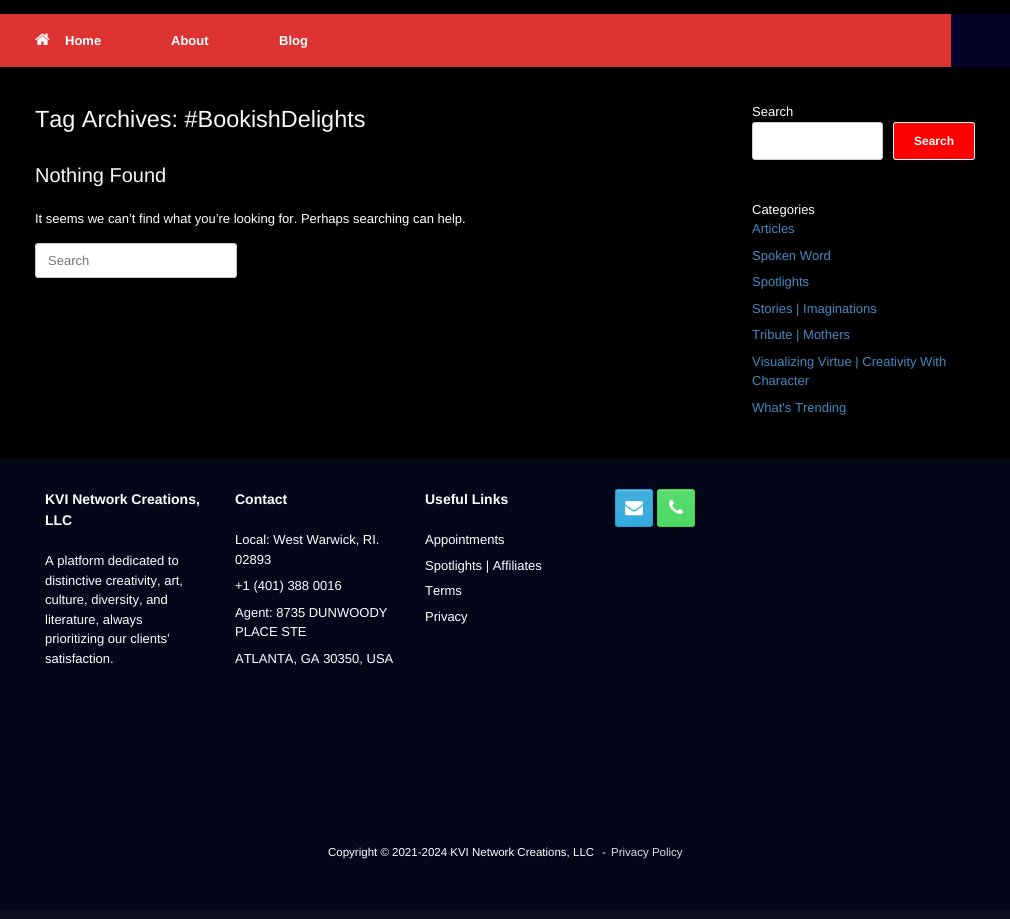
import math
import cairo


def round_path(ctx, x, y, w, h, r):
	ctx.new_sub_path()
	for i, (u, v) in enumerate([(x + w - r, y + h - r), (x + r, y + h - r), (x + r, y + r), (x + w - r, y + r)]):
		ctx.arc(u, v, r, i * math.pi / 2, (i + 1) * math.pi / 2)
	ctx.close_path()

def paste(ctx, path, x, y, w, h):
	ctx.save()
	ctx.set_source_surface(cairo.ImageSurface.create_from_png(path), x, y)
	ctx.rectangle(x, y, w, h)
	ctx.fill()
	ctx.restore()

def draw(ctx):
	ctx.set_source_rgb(0.016, 0.031, 0.098)
	ctx.paint()
	ctx.set_source_rgb(0, 0, 0)
	ctx.rectangle(0, 0, 1010, 14)
	ctx.fill()
	ctx.set_source_rgb(0.867, 0.2, 0.2)
	ctx.rectangle(0, 14, 951, 53)
	ctx.fill()
	paste(ctx, 'media/1.png', 35, 33, 15, 12)
	ctx.select_font_face('Liberation Sans', cairo.FONT_SLANT_NORMAL, cairo.FONT_WEIGHT_BOLD)
	ctx.set_font_size(13)
	ctx.set_source_rgb(1, 1, 1)
	for x, y, s in [
		(65, 45, 'Home'),
		(171, 45, 'About'),
		(279, 45, 'Blog'),
	]:
		ctx.move_to(x, y)
		ctx.show_text(s)
	ctx.set_source_rgb(0.02, 0.016, 0.157)
	ctx.rectangle(951, 14, 59, 53)
	ctx.fill()
	ctx.set_source_rgb(0, 0, 0)
	ctx.rectangle(0, 67, 1010, 392)
	ctx.fill()
	ctx.select_font_face('Liberation Sans')
	ctx.set_font_size(23.4)
	ctx.set_source_rgb(0.969, 0.969, 0.969)
	ctx.move_to(35, 127)
	ctx.show_text('Tag Archives: #BookishDelights')
	ctx.set_font_size(20)
	ctx.move_to(35, 182)
	ctx.show_text('Nothing Found')
	ctx.set_font_size(13)
	ctx.set_source_rgb(1, 1, 1)
	ctx.move_to(35, 223)
	ctx.show_text('It seems we can’t find what you’re looking for. Perhaps searching can help.')
	round_path(ctx, 35.5, 243.5, 201, 34, 2.5)
	ctx.fill_preserve()
	ctx.set_source_rgb(0.8, 0.8, 0.8)
	ctx.set_line_width(1)
	ctx.stroke()
	ctx.set_source_rgb(0.459, 0.459, 0.459)
	ctx.move_to(48, 265)
	ctx.show_text('Search')
	ctx.set_source_rgb(1, 1, 1)
	ctx.move_to(752, 116)
	ctx.show_text('Search')
	round_path(ctx, 752.5, 122.5, 130, 37, 2.5)
	ctx.fill_preserve()
	ctx.set_source_rgb(0.8, 0.8, 0.8)
	ctx.stroke()
	ctx.set_source_rgb(1, 0, 0)
	round_path(ctx, 893.5, 122.5, 81, 37, 2.5)
	ctx.fill_preserve()
	ctx.set_source_rgb(1, 1, 1)
	ctx.stroke()
	ctx.select_font_face('Liberation Sans', cairo.FONT_SLANT_NORMAL, cairo.FONT_WEIGHT_BOLD)
	ctx.set_font_size(12)
	ctx.move_to(914, 145)
	ctx.show_text('Search')
	ctx.select_font_face('Liberation Sans')
	ctx.set_font_size(13)
	ctx.move_to(752, 214)
	ctx.show_text('Categories')
	ctx.set_source_rgb(0.275, 0.529, 0.749)
	for x, y, s in [
		(752, 233, 'Articles'),
		(752, 260, 'Spoken Word'),
		(752, 286, 'Spotlights'),
		(752, 313, 'Stories | Imaginations'),
		(752, 339, 'Tribute | Mothers'),
		(752, 366, 'Visualizing Virtue | Creativity With'),
		(752, 385, 'Character'),
		(752, 412, 'What\'s Trending'),
	]:
		ctx.move_to(x, y)
		ctx.show_text(s)
	ctx.select_font_face('Liberation Sans', cairo.FONT_SLANT_NORMAL, cairo.FONT_WEIGHT_BOLD)
	ctx.set_font_size(14)
	ctx.set_source_rgb(1, 1, 1)
	ctx.move_to(45, 504)
	ctx.show_text('KVI Network Creations,')
	ctx.move_to(45, 525)
	ctx.show_text('LLC')
	ctx.select_font_face('Liberation Sans')
	ctx.set_font_size(13)
	for x, y, s in [
		(45, 565, 'A platform dedicated to'),
		(45, 585, 'distinctive creativity, art,'),
		(45, 604, 'culture, diversity, and'),
		(45, 624, 'literature, always'),
		(45, 643, 'prioritizing our clients’'),
		(45, 663, 'satisfaction.'),
	]:
		ctx.move_to(x, y)
		ctx.show_text(s)
	ctx.select_font_face('Liberation Sans', cairo.FONT_SLANT_NORMAL, cairo.FONT_WEIGHT_BOLD)
	ctx.set_font_size(14)
	ctx.move_to(235, 504)
	ctx.show_text('Contact')
	ctx.select_font_face('Liberation Sans')
	ctx.set_font_size(13)
	for x, y, s in [
		(235, 544, 'Local: West Warwick, RI.'),
		(235, 564, '02893'),
		(235, 590, '+1 (401) 388 0016'),
		(235, 617, 'Agent: 8735 DUNWOODY'),
		(235, 636, 'PLACE STE'),
		(235, 663, 'ATLANTA, GA 30350, USA'),
	]:
		ctx.move_to(x, y)
		ctx.show_text(s)
	ctx.select_font_face('Liberation Sans', cairo.FONT_SLANT_NORMAL, cairo.FONT_WEIGHT_BOLD)
	ctx.set_font_size(14)
	ctx.move_to(425, 504)
	ctx.show_text('Useful Links')
	ctx.select_font_face('Liberation Sans')
	ctx.set_font_size(13)
	for x, y, s in [
		(425, 544, 'Appointments'),
		(425, 570, 'Spotlights | Affiliates'),
		(425, 595, 'Terms'),
		(425, 621, 'Privacy'),
	]:
		ctx.move_to(x, y)
		ctx.show_text(s)
	ctx.save()
	round_path(ctx, 615, 489, 38, 38, 3)
	ctx.clip()
	gradient = cairo.LinearGradient(634, 526, 634, 490)
	gradient.add_color_stop_rgba(0, 0.204, 0.667, 0.863, 1)
	gradient.add_color_stop_rgba(1, 0.255, 0.686, 0.871, 1)
	ctx.set_source(gradient)
	ctx.rectangle(615, 490, 38, 36)
	ctx.fill()
	ctx.restore()
	ctx.set_source_rgb(0.404, 0.749, 0.898)
	ctx.new_path()
	ctx.move_to(618, 491)
	ctx.line_to(650, 491)
	ctx.curve_to(651, 491, 652, 492, 652, 493)
	ctx.curve_to(652, 488.5, 648.5, 490, 644.5, 490)
	ctx.line_to(623.5, 490)
	ctx.curve_to(619.5, 490, 616, 488.5, 616, 493)
	ctx.curve_to(616, 492, 617, 491, 618, 491)
	ctx.close_path()
	ctx.fill()
	round_path(ctx, 615.5, 489.5, 37, 37, 2.5)
	ctx.set_source_rgb(0.141, 0.62, 0.824)
	ctx.stroke()
	paste(ctx, 'media/2.png', 625, 501, 18, 15)
	ctx.save()
	round_path(ctx, 657, 489, 38, 38, 3)
	ctx.clip()
	gradient = cairo.LinearGradient(676, 526, 676, 490)
	gradient.add_color_stop_rgba(0, 0.298, 0.851, 0.392, 1)
	gradient.add_color_stop_rgba(1, 0.349, 0.863, 0.435, 1)
	ctx.set_source(gradient)
	ctx.rectangle(657, 490, 38, 36)
	ctx.fill()
	ctx.restore()
	ctx.set_source_rgb(0.478, 0.89, 0.549)
	ctx.new_path()
	ctx.move_to(660, 491)
	ctx.line_to(692, 491)
	ctx.curve_to(693, 491, 694, 492, 694, 493)
	ctx.curve_to(694, 488.5, 690.5, 490, 686.5, 490)
	ctx.line_to(665.5, 490)
	ctx.curve_to(661.5, 490, 658, 488.5, 658, 493)
	ctx.curve_to(658, 492, 659, 491, 660, 491)
	ctx.close_path()
	ctx.fill()
	round_path(ctx, 657.5, 489.5, 37, 37, 2.5)
	ctx.set_source_rgb(0.216, 0.835, 0.322)
	ctx.stroke()
	paste(ctx, 'media/3.png', 669, 499, 15, 15)
	ctx.set_font_size(11.5)
	ctx.set_source_rgb(1, 1, 1)
	ctx.move_to(328, 856)
	ctx.show_text('Copyright © 2021-2024 KVI Network Creations, LLC')
	ctx.move_to(602, 856)
	ctx.show_text('-')
	ctx.set_source_rgb(0.867, 0.867, 0.867)
	ctx.move_to(611, 856)
	ctx.show_text('Privacy Policy')
	ctx.set_source_rgb(0.043, 0.059, 0.125)
	ctx.rectangle(0, 911, 1010, 8)
	ctx.fill()


surface = cairo.ImageSurface(cairo.FORMAT_RGB24, 1010, 919)
ctx = cairo.Context(surface)
options = cairo.FontOptions()
options.set_hint_metrics(cairo.HINT_METRICS_OFF)
options.set_hint_style(cairo.HINT_STYLE_NONE)
ctx.set_font_options(options)
ctx.set_miter_limit(4)
draw(ctx)
surface.write_to_png('image.png')
